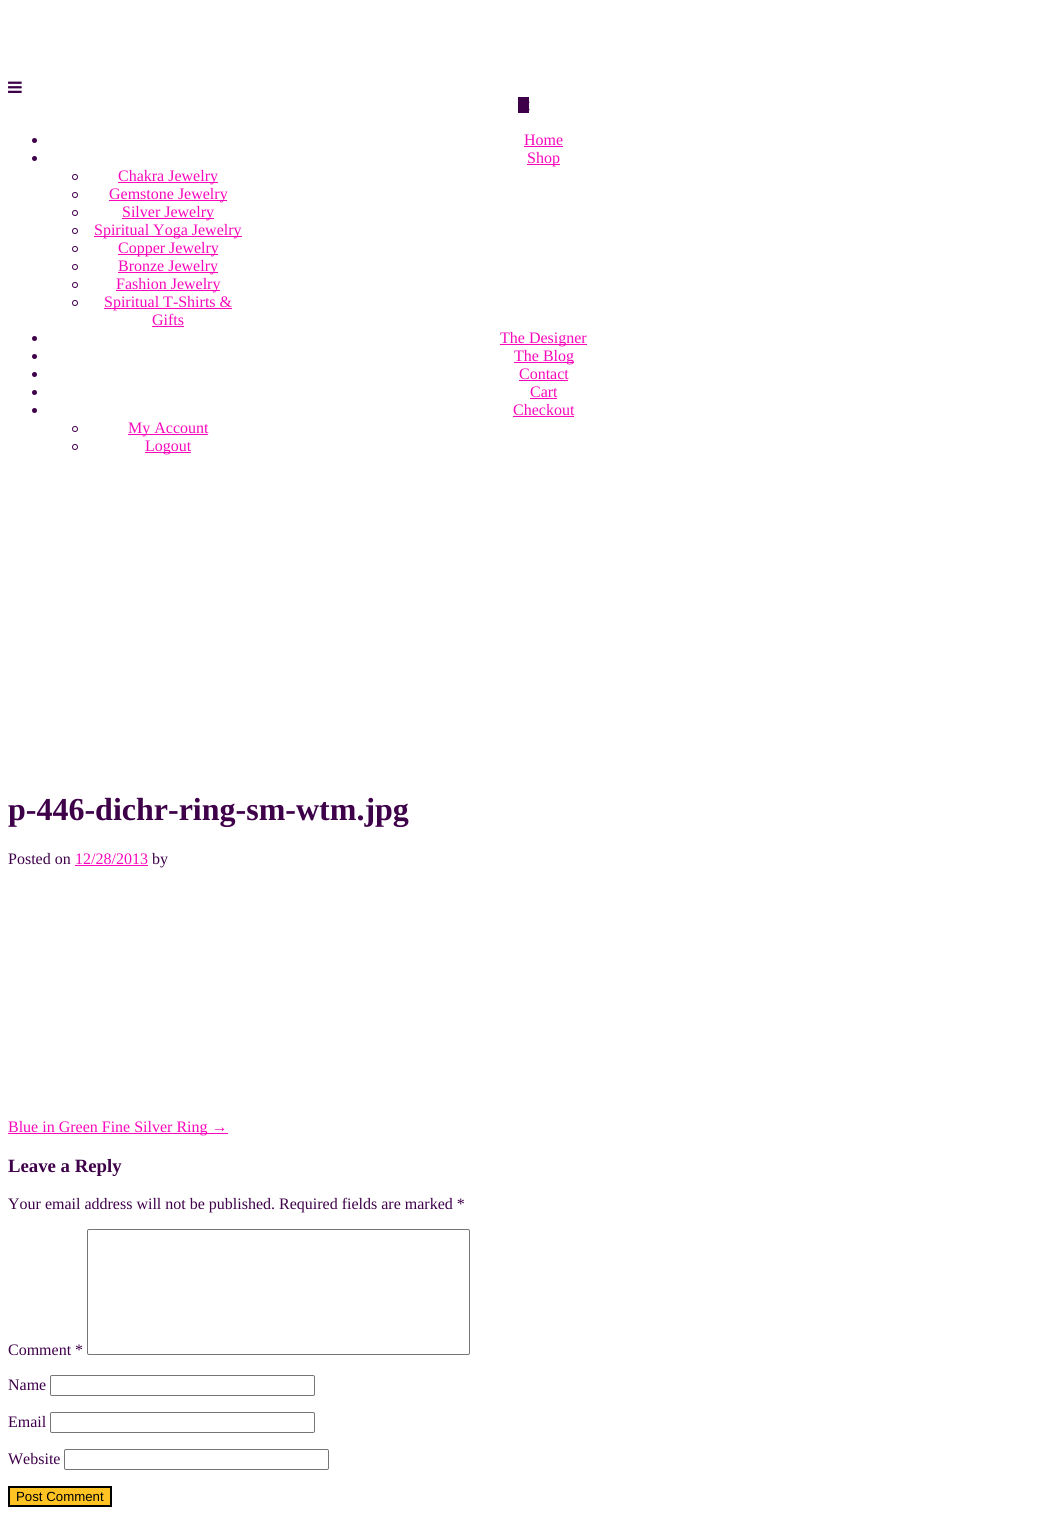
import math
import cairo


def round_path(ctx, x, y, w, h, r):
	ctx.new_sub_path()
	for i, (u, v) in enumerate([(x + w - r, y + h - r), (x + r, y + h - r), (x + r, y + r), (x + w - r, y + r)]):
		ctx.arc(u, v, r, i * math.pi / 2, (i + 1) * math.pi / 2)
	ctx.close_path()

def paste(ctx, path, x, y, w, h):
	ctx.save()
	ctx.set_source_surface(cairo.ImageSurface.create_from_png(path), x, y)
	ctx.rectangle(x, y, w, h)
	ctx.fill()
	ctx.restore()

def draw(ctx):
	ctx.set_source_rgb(1, 1, 1)
	ctx.paint()
	paste(ctx, 'media/1.png', 8, 81, 14, 12)
	ctx.set_source_rgb(0.243, 0, 0.286)
	ctx.rectangle(518, 97, 11, 16)
	ctx.fill()
	paste(ctx, 'media/2.png', 529, 101, 1, 10)
	ctx.arc(34.5, 140.5, 2.5, 0, 2 * math.pi)
	ctx.fill()
	ctx.select_font_face('Liberation Serif')
	ctx.set_font_size(16)
	ctx.set_source_rgb(0.969, 0.035, 0.733)
	ctx.move_to(524, 145)
	ctx.show_text('Home')
	ctx.rectangle(524, 146, 39, 1)
	ctx.fill()
	ctx.set_source_rgb(0.243, 0, 0.286)
	ctx.arc(34.5, 158.5, 2.5, 0, 2 * math.pi)
	ctx.fill()
	ctx.set_source_rgb(0.969, 0.035, 0.733)
	ctx.rectangle(527, 164, 33, 1)
	ctx.fill()
	ctx.move_to(527, 163)
	ctx.show_text('Shop')
	ctx.new_path()
	ctx.arc(75, 177, 2.5, 0, 2 * math.pi)
	ctx.set_source_rgb(0.243, 0, 0.286)
	ctx.set_line_width(1)
	ctx.stroke()
	ctx.set_source_rgb(0.969, 0.035, 0.733)
	ctx.rectangle(118, 182, 100, 1)
	ctx.fill()
	ctx.move_to(118, 181)
	ctx.show_text('Chakra Jewelry')
	ctx.new_path()
	ctx.arc(75, 195, 2.5, 0, 2 * math.pi)
	ctx.set_source_rgb(0.243, 0, 0.286)
	ctx.stroke()
	ctx.set_source_rgb(0.969, 0.035, 0.733)
	ctx.rectangle(109, 200, 118, 1)
	ctx.fill()
	ctx.move_to(109, 199)
	ctx.show_text('Gemstone Jewelry')
	ctx.new_path()
	ctx.arc(75, 213, 2.5, 0, 2 * math.pi)
	ctx.set_source_rgb(0.243, 0, 0.286)
	ctx.stroke()
	ctx.set_source_rgb(0.969, 0.035, 0.733)
	ctx.rectangle(122, 218, 92, 1)
	ctx.fill()
	ctx.move_to(122, 217)
	ctx.show_text('Silver Jewelry')
	ctx.new_path()
	ctx.arc(75, 231, 2.5, 0, 2 * math.pi)
	ctx.set_source_rgb(0.243, 0, 0.286)
	ctx.stroke()
	ctx.set_source_rgb(0.969, 0.035, 0.733)
	ctx.rectangle(94, 236, 148, 1)
	ctx.fill()
	ctx.move_to(94, 235)
	ctx.show_text('Spiritual Yoga Jewelry')
	ctx.new_path()
	ctx.arc(75, 249, 2.5, 0, 2 * math.pi)
	ctx.set_source_rgb(0.243, 0, 0.286)
	ctx.stroke()
	ctx.set_source_rgb(0.969, 0.035, 0.733)
	ctx.rectangle(118, 254, 100, 1)
	ctx.fill()
	ctx.move_to(118, 253)
	ctx.show_text('Copper Jewelry')
	ctx.new_path()
	ctx.arc(75, 267, 2.5, 0, 2 * math.pi)
	ctx.set_source_rgb(0.243, 0, 0.286)
	ctx.stroke()
	ctx.set_source_rgb(0.969, 0.035, 0.733)
	ctx.rectangle(118, 272, 100, 1)
	ctx.fill()
	ctx.move_to(118, 271)
	ctx.show_text('Bronze Jewelry')
	ctx.new_path()
	ctx.arc(75, 285, 2.5, 0, 2 * math.pi)
	ctx.set_source_rgb(0.243, 0, 0.286)
	ctx.stroke()
	ctx.set_source_rgb(0.969, 0.035, 0.733)
	ctx.rectangle(116, 290, 104, 1)
	ctx.fill()
	ctx.move_to(116, 289)
	ctx.show_text('Fashion Jewelry')
	ctx.new_path()
	ctx.arc(75, 303, 2.5, 0, 2 * math.pi)
	ctx.set_source_rgb(0.243, 0, 0.286)
	ctx.stroke()
	ctx.set_source_rgb(0.969, 0.035, 0.733)
	ctx.rectangle(104, 308, 128, 1)
	ctx.fill()
	ctx.move_to(104, 307)
	ctx.show_text('Spiritual T-Shirts &')
	ctx.move_to(152, 325)
	ctx.show_text('Gifts')
	ctx.rectangle(152, 326, 32, 1)
	ctx.fill()
	ctx.set_source_rgb(0.243, 0, 0.286)
	ctx.arc(34.5, 338.5, 2.5, 0, 2 * math.pi)
	ctx.fill()
	ctx.set_source_rgb(0.969, 0.035, 0.733)
	ctx.rectangle(500, 344, 87, 1)
	ctx.fill()
	ctx.move_to(500, 343)
	ctx.show_text('The Designer')
	ctx.set_source_rgb(0.243, 0, 0.286)
	ctx.new_path()
	ctx.arc(34.5, 356.5, 2.5, 0, 2 * math.pi)
	ctx.fill()
	ctx.set_source_rgb(0.969, 0.035, 0.733)
	ctx.rectangle(514, 362, 60, 1)
	ctx.fill()
	ctx.move_to(514, 361)
	ctx.show_text('The Blog')
	ctx.set_source_rgb(0.243, 0, 0.286)
	ctx.new_path()
	ctx.arc(34.5, 374.5, 2.5, 0, 2 * math.pi)
	ctx.fill()
	ctx.set_source_rgb(0.969, 0.035, 0.733)
	ctx.move_to(519, 379)
	ctx.show_text('Contact')
	ctx.rectangle(519, 380, 49, 1)
	ctx.fill()
	ctx.set_source_rgb(0.243, 0, 0.286)
	ctx.arc(34.5, 392.5, 2.5, 0, 2 * math.pi)
	ctx.fill()
	ctx.set_source_rgb(0.969, 0.035, 0.733)
	ctx.move_to(530, 397)
	ctx.show_text('Cart')
	ctx.rectangle(530, 398, 27, 1)
	ctx.fill()
	ctx.set_source_rgb(0.243, 0, 0.286)
	ctx.arc(34.5, 410.5, 2.5, 0, 2 * math.pi)
	ctx.fill()
	ctx.set_source_rgb(0.969, 0.035, 0.733)
	ctx.move_to(513, 415)
	ctx.show_text('Checkout')
	ctx.rectangle(513, 416, 61, 1)
	ctx.fill()
	ctx.arc(75, 429, 2.5, 0, 2 * math.pi)
	ctx.set_source_rgb(0.243, 0, 0.286)
	ctx.stroke()
	ctx.set_source_rgb(0.969, 0.035, 0.733)
	ctx.rectangle(128, 434, 80, 1)
	ctx.fill()
	ctx.move_to(128, 433)
	ctx.show_text('My Account')
	ctx.new_path()
	ctx.arc(75, 447, 2.5, 0, 2 * math.pi)
	ctx.set_source_rgb(0.243, 0, 0.286)
	ctx.stroke()
	ctx.set_source_rgb(0.969, 0.035, 0.733)
	ctx.rectangle(145, 452, 46, 1)
	ctx.fill()
	ctx.move_to(145, 451)
	ctx.show_text('Logout')
	ctx.select_font_face('Liberation Serif', cairo.FONT_SLANT_NORMAL, cairo.FONT_WEIGHT_BOLD)
	ctx.set_font_size(32)
	ctx.set_source_rgb(0.243, 0, 0.286)
	ctx.move_to(8, 820)
	ctx.show_text('p-446-dichr-ring-sm-wtm.jpg')
	ctx.select_font_face('Liberation Serif')
	ctx.set_font_size(16)
	ctx.move_to(8, 864)
	ctx.show_text('Posted on')
	ctx.set_source_rgb(0.969, 0.035, 0.733)
	ctx.move_to(75, 864)
	ctx.show_text('12/28/2013')
	ctx.rectangle(75, 865, 73, 1)
	ctx.fill()
	ctx.set_source_rgb(0.243, 0, 0.286)
	ctx.move_to(152, 864)
	ctx.show_text('by')
	ctx.set_source_rgb(0.969, 0.035, 0.733)
	ctx.rectangle(8, 1133, 220, 1)
	ctx.fill()
	ctx.move_to(8, 1132)
	ctx.show_text('Blue in Green Fine Silver Ring →')
	ctx.select_font_face('Liberation Serif', cairo.FONT_SLANT_NORMAL, cairo.FONT_WEIGHT_BOLD)
	ctx.set_font_size(18.75)
	ctx.set_source_rgb(0.243, 0, 0.286)
	ctx.move_to(8, 1172)
	ctx.show_text('Leave a Reply')
	ctx.select_font_face('Liberation Serif')
	ctx.set_font_size(16)
	ctx.move_to(8, 1209)
	ctx.show_text('Your email address will not be published. Required fields are marked *')
	ctx.move_to(8, 1355)
	ctx.show_text('Comment *')
	round_path(ctx, 87.5, 1229.5, 382, 125, 1.5)
	ctx.set_source_rgb(0.463, 0.463, 0.463)
	ctx.stroke()
	ctx.set_source_rgb(0.243, 0, 0.286)
	ctx.move_to(8, 1390)
	ctx.show_text('Name')
	round_path(ctx, 50.5, 1375.5, 264, 20, 1.5)
	ctx.set_source_rgb(0.463, 0.463, 0.463)
	ctx.stroke()
	ctx.set_source_rgb(0.243, 0, 0.286)
	ctx.move_to(8, 1427)
	ctx.show_text('Email')
	round_path(ctx, 50.5, 1412.5, 264, 20, 1.5)
	ctx.set_source_rgb(0.463, 0.463, 0.463)
	ctx.stroke()
	ctx.set_source_rgb(0.243, 0, 0.286)
	ctx.move_to(8, 1464)
	ctx.show_text('Website')
	round_path(ctx, 64.5, 1449.5, 264, 20, 1.5)
	ctx.set_source_rgb(0.463, 0.463, 0.463)
	ctx.stroke()
	ctx.set_source_rgb(1, 0.769, 0.137)
	ctx.rectangle(9, 1487, 102, 19)
	ctx.fill_preserve()
	ctx.set_source_rgb(0, 0, 0)
	ctx.set_line_width(2)
	ctx.stroke()
	ctx.select_font_face('Liberation Sans')
	ctx.set_font_size(13.25)
	ctx.move_to(16, 1501)
	ctx.show_text('Post Comment')


surface = cairo.ImageSurface(cairo.FORMAT_RGB24, 1047, 1529)
ctx = cairo.Context(surface)
options = cairo.FontOptions()
options.set_hint_metrics(cairo.HINT_METRICS_OFF)
options.set_hint_style(cairo.HINT_STYLE_NONE)
ctx.set_font_options(options)
ctx.set_miter_limit(4)
draw(ctx)
surface.write_to_png('image.png')
